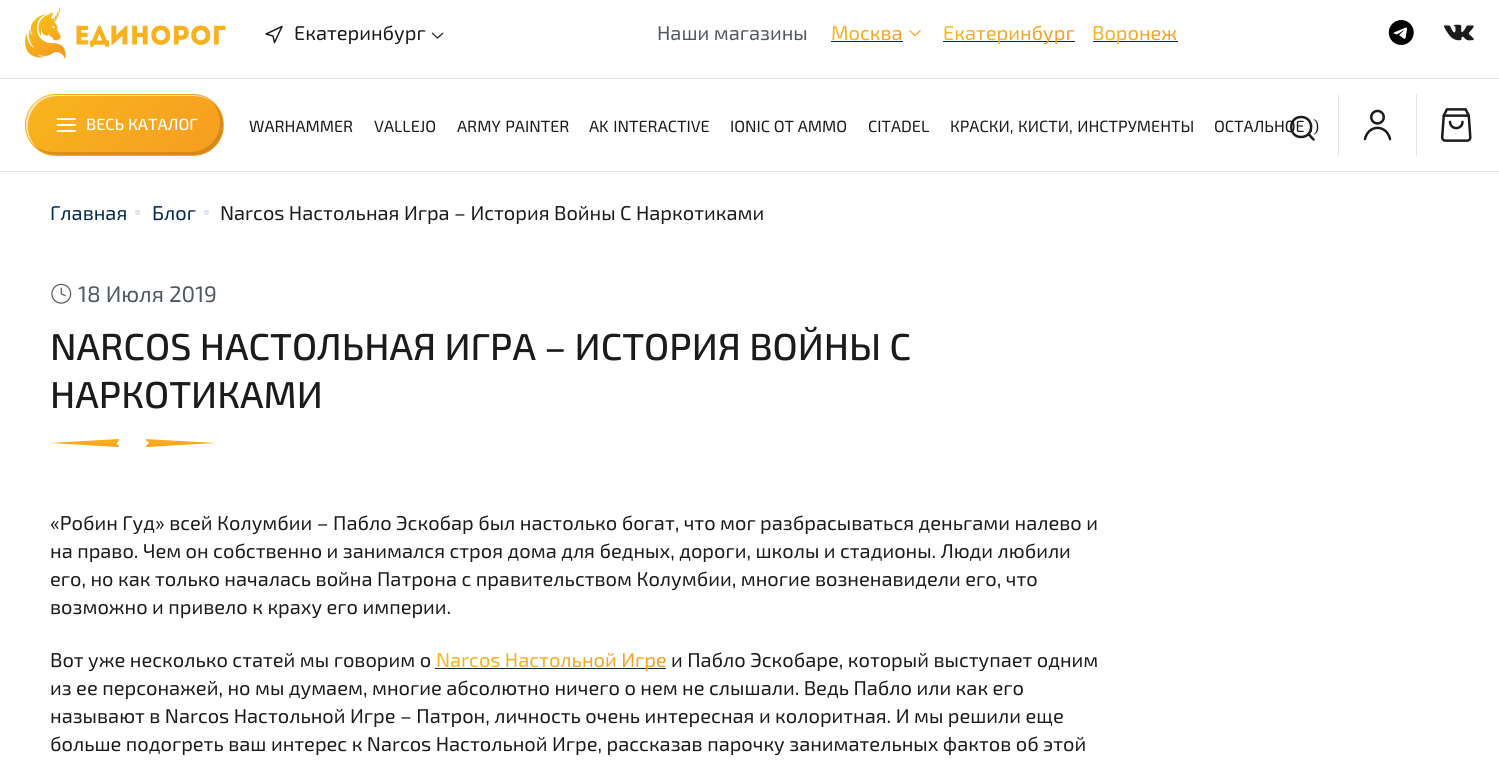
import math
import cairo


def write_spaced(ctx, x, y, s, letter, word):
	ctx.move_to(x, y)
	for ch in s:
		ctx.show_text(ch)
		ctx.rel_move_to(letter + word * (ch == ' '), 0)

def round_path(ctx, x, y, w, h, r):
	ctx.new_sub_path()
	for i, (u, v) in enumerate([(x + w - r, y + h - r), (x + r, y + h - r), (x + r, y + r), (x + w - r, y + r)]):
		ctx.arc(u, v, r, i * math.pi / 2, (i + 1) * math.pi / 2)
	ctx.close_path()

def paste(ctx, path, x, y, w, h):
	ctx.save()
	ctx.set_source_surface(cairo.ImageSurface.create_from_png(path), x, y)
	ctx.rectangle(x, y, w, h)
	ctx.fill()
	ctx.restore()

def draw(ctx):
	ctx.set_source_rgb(1, 1, 1)
	ctx.paint()
	ctx.set_source_rgb(0.89, 0.906, 0.922)
	ctx.rectangle(0, 78, 1499, 1)
	ctx.fill()
	paste(ctx, 'media/1.png', 25, 6, 201, 53)
	ctx.new_path()
	ctx.move_to(266, 34)
	ctx.line_to(282, 26.5)
	ctx.line_to(274.5, 42.5)
	ctx.line_to(273, 36)
	ctx.close_path()
	ctx.set_source_rgb(0.11, 0.106, 0.102)
	ctx.set_line_width(1.5)
	ctx.set_line_cap(cairo.LINE_CAP_ROUND)
	ctx.set_line_join(cairo.LINE_JOIN_ROUND)
	ctx.stroke()
	ctx.select_font_face('Exo 2')
	ctx.set_font_size(20)
	ctx.move_to(294, 40)
	ctx.show_text('Екатеринбург')
	ctx.new_path()
	ctx.move_to(443, 33)
	ctx.line_to(437.5, 38)
	ctx.line_to(432, 33)
	ctx.set_line_width(1.2)
	ctx.set_line_cap(cairo.LINE_CAP_BUTT)
	ctx.set_line_join(cairo.LINE_JOIN_MITER)
	ctx.stroke()
	ctx.set_source_rgb(0.318, 0.349, 0.376)
	ctx.move_to(657, 40)
	ctx.show_text('Наши магазины')
	gradient = cairo.LinearGradient(830, 29, 926, 37)
	gradient.add_color_stop_rgba(0, 0.976, 0.71, 0.118, 1)
	gradient.add_color_stop_rgba(1, 0.961, 0.616, 0.125, 1)
	ctx.set_source(gradient)
	ctx.move_to(831, 40)
	ctx.show_text('Москва')
	ctx.set_source_rgb(0.012, 0.165, 0.322)
	ctx.rectangle(831, 41, 72, 1)
	ctx.fill()
	ctx.new_path()
	ctx.move_to(920.5, 30.5)
	ctx.line_to(915, 35.5)
	ctx.line_to(909.5, 30.5)
	gradient = cairo.LinearGradient(915, 25, 920, 31)
	gradient.add_color_stop_rgba(0, 0.976, 0.71, 0.118, 1)
	gradient.add_color_stop_rgba(1, 0.961, 0.616, 0.125, 1)
	ctx.set_source(gradient)
	ctx.stroke()
	ctx.set_source_rgb(0.012, 0.165, 0.322)
	ctx.rectangle(943, 41, 132, 1)
	ctx.fill()
	gradient = cairo.LinearGradient(942, 27, 1075, 39)
	gradient.add_color_stop_rgba(0, 0.976, 0.71, 0.118, 1)
	gradient.add_color_stop_rgba(1, 0.961, 0.616, 0.125, 1)
	ctx.set_source(gradient)
	ctx.move_to(943, 40)
	ctx.show_text('Екатеринбург')
	ctx.set_source_rgb(0.012, 0.165, 0.322)
	ctx.rectangle(1093, 41, 85, 1)
	ctx.fill()
	gradient = cairo.LinearGradient(1091, 29, 1178, 37)
	gradient.add_color_stop_rgba(0, 0.976, 0.71, 0.118, 1)
	gradient.add_color_stop_rgba(1, 0.961, 0.616, 0.125, 1)
	ctx.set_source(gradient)
	ctx.move_to(1092, 40)
	ctx.show_text('Воронеж')
	paste(ctx, 'media/2.png', 1388, 20, 26, 25)
	paste(ctx, 'media/3.png', 1444, 24, 30, 17)
	ctx.set_source_rgb(0.89, 0.906, 0.922)
	ctx.rectangle(0, 171, 1499, 1)
	ctx.fill()
	ctx.save()
	round_path(ctx, 25, 94, 199, 62, 31)
	ctx.clip()
	gradient = cairo.LinearGradient(60, 0.9, 188, 129)
	gradient.add_color_stop_rgba(0, 0.976, 0.71, 0.118, 1)
	gradient.add_color_stop_rgba(1, 0.961, 0.616, 0.125, 1)
	ctx.set_source(gradient)
	ctx.rectangle(48, 94, 153, 1)
	ctx.fill()
	gradient = cairo.LinearGradient(-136, 61, -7.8, 189)
	gradient.add_color_stop_rgba(0, 0.976, 0.71, 0.118, 1)
	gradient.add_color_stop_rgba(1, 0.961, 0.616, 0.125, 1)
	ctx.set_source(gradient)
	ctx.rectangle(25, 117, 1, 16)
	ctx.fill()
	gradient = cairo.LinearGradient(60, 61, 188, 189)
	gradient.add_color_stop_rgba(0, 0.976, 0.71, 0.118, 1)
	gradient.add_color_stop_rgba(1, 0.961, 0.616, 0.125, 1)
	ctx.set_source(gradient)
	ctx.rectangle(26, 95, 197, 60)
	ctx.fill()
	gradient = cairo.LinearGradient(257, 61, 385, 189)
	gradient.add_color_stop_rgba(0, 0.976, 0.71, 0.118, 1)
	gradient.add_color_stop_rgba(1, 0.961, 0.616, 0.125, 1)
	ctx.set_source(gradient)
	ctx.rectangle(223, 117, 1, 16)
	ctx.fill()
	gradient = cairo.LinearGradient(60, 121, 188, 249)
	gradient.add_color_stop_rgba(0, 0.976, 0.71, 0.118, 1)
	gradient.add_color_stop_rgba(1, 0.961, 0.616, 0.125, 1)
	ctx.set_source(gradient)
	ctx.rectangle(48, 155, 153, 1)
	ctx.fill()
	ctx.restore()
	ctx.set_source_rgba(0.529, 0.333, 0.039, 0.29)
	ctx.new_path()
	ctx.move_to(31, 142)
	ctx.curve_to(36, 150, 46, 155, 56, 155)
	ctx.line_to(193, 155)
	ctx.curve_to(210, 155, 223, 142, 223, 125)
	ctx.curve_to(223, 116, 219, 108, 212, 102)
	ctx.curve_to(217, 108, 220, 115, 220, 122)
	ctx.curve_to(220, 139, 207, 152, 190, 152)
	ctx.line_to(54, 152)
	ctx.curve_to(45, 152, 36, 148, 31, 142)
	ctx.close_path()
	ctx.fill()
	ctx.set_source_rgba(1, 1, 1, 0.68)
	ctx.new_path()
	ctx.move_to(58, 96)
	ctx.line_to(194, 96)
	ctx.curve_to(204, 96, 213, 101, 218, 109)
	ctx.curve_to(213, 101, 204, 95, 193, 95)
	ctx.line_to(56, 95)
	ctx.curve_to(39, 95, 26, 108, 26, 125)
	ctx.curve_to(26, 136, 32, 146, 41, 151)
	ctx.curve_to(17, 135, 28, 96, 58, 96)
	ctx.close_path()
	ctx.fill()
	ctx.new_path()
	ctx.move_to(75, 119)
	ctx.line_to(57.5, 119)
	ctx.move_to(75, 125)
	ctx.line_to(57.5, 125)
	ctx.move_to(75, 131)
	ctx.line_to(57.5, 131)
	ctx.set_source_rgb(1, 1, 1)
	ctx.set_line_width(1.9)
	ctx.set_line_cap(cairo.LINE_CAP_ROUND)
	ctx.set_line_join(cairo.LINE_JOIN_ROUND)
	ctx.stroke()
	ctx.select_font_face('Exo 2 Medium')
	ctx.set_font_size(16.25)
	ctx.move_to(86, 130)
	ctx.show_text('ВЕСЬ КАТАЛОГ')
	ctx.select_font_face('Exo 2')
	ctx.set_source_rgb(0.11, 0.106, 0.102)
	ctx.move_to(249, 132)
	ctx.show_text('WARHAMMER')
	ctx.move_to(374, 132)
	ctx.show_text('VALLEJO')
	write_spaced(ctx, 457, 132, 'ARMY PAINTER', 0, 1)
	write_spaced(ctx, 589, 132, 'AK INTERACTIVE', 0, 1)
	ctx.move_to(730, 132)
	ctx.show_text('IONIC ОТ AMMO')
	ctx.move_to(868, 132)
	ctx.show_text('CITADEL')
	write_spaced(ctx, 950, 132, 'КРАСКИ, КИСТИ, ИНСТРУМЕНТЫ', 0, 1)
	write_spaced(ctx, 1214, 132, 'ОСТАЛЬНОЕ :)', 0, 1)
	ctx.set_source_rgb(0.89, 0.906, 0.922)
	ctx.rectangle(1338, 94, 1, 62)
	ctx.fill()
	ctx.new_path()
	ctx.move_to(1301, 137)
	ctx.curve_to(1314.5, 137, 1314.5, 117, 1301, 117)
	ctx.curve_to(1288, 117, 1288, 137, 1301, 137)
	ctx.close_path()
	ctx.move_to(1313.5, 139.5)
	ctx.line_to(1308.5, 134)
	ctx.set_source_rgb(0.11, 0.106, 0.102)
	ctx.set_line_width(2.5)
	ctx.stroke()
	ctx.set_source_rgb(0.89, 0.906, 0.922)
	ctx.rectangle(1416, 94, 1, 62)
	ctx.fill()
	paste(ctx, 'media/4.png', 1363, 109, 29, 32)
	paste(ctx, 'media/5.png', 1440, 108, 32, 34)
	ctx.set_font_size(20)
	ctx.set_source_rgb(0.012, 0.165, 0.322)
	ctx.move_to(50, 220)
	ctx.show_text('Главная')
	ctx.set_source_rgb(0.89, 0.906, 0.922)
	round_path(ctx, 135, 210, 5, 5, 1)
	ctx.fill()
	ctx.set_source_rgb(0.012, 0.165, 0.322)
	ctx.move_to(152, 220)
	ctx.show_text('Блог')
	ctx.set_source_rgb(0.89, 0.906, 0.922)
	round_path(ctx, 204, 210, 5, 5, 1)
	ctx.fill()
	ctx.set_source_rgb(0.11, 0.106, 0.102)
	ctx.move_to(220, 220)
	ctx.show_text('Narcos Настольная Игра – История Войны С Наркотиками')
	paste(ctx, 'media/6.png', 51, 283, 21, 21)
	ctx.set_font_size(22.5)
	ctx.set_source_rgb(0.318, 0.349, 0.376)
	ctx.move_to(78, 302)
	ctx.show_text('18 Июля 2019')
	ctx.select_font_face('Exo 2 Medium')
	ctx.set_font_size(37.5)
	ctx.set_source_rgb(0.11, 0.106, 0.102)
	ctx.move_to(50, 360)
	ctx.show_text('NARCOS НАСТОЛЬНАЯ ИГРА – ИСТОРИЯ ВОЙНЫ С')
	ctx.move_to(50, 408)
	ctx.show_text('НАРКОТИКАМИ')
	gradient = cairo.LinearGradient(50, 439, 50, 448)
	gradient.add_color_stop_rgba(0, 0.976, 0.71, 0.118, 1)
	gradient.add_color_stop_rgba(1, 0.961, 0.616, 0.125, 1)
	ctx.set_source(gradient)
	ctx.new_path()
	ctx.move_to(50, 443)
	ctx.line_to(118, 447)
	ctx.line_to(119, 447)
	ctx.curve_to(119, 445, 116, 445, 117, 443)
	ctx.curve_to(117, 442, 121, 439, 118, 439)
	ctx.close_path()
	ctx.fill()
	gradient = cairo.LinearGradient(216, 439, 216, 448)
	gradient.add_color_stop_rgba(0, 0.976, 0.71, 0.118, 1)
	gradient.add_color_stop_rgba(1, 0.961, 0.616, 0.125, 1)
	ctx.set_source(gradient)
	ctx.new_path()
	ctx.move_to(216, 443)
	ctx.line_to(147, 447)
	ctx.curve_to(144, 447, 148, 444, 149, 443)
	ctx.curve_to(149, 442, 145, 441, 146, 439)
	ctx.close_path()
	ctx.fill()
	ctx.select_font_face('Exo 2')
	ctx.set_font_size(20)
	ctx.set_source_rgb(0.11, 0.106, 0.102)
	for x, y, s in [
		(50, 530, '«Робин Гуд» всей Колумбии – Пабло Эскобар был настолько богат, что мог разбрасываться деньгами налево и'),
		(50, 558, 'на право. Чем он собственно и занимался строя дома для бедных, дороги, школы и стадионы. Люди любили'),
		(50, 586, 'его, но как только началась война Патрона с правительством Колумбии, многие возненавидели его, что'),
		(50, 614, 'возможно и привело к краху его империи.'),
		(50, 667, 'Вот уже несколько статей мы говорим о'),
	]:
		ctx.move_to(x, y)
		ctx.show_text(s)
	ctx.set_source_rgb(0.012, 0.165, 0.322)
	ctx.rectangle(435, 668, 231, 1)
	ctx.fill()
	gradient = cairo.LinearGradient(435, 649, 666, 669)
	gradient.add_color_stop_rgba(0, 0.976, 0.71, 0.118, 1)
	gradient.add_color_stop_rgba(1, 0.961, 0.616, 0.125, 1)
	ctx.set_source(gradient)
	ctx.move_to(436, 667)
	ctx.show_text('Narcos Настольной Игре')
	ctx.set_source_rgb(0.11, 0.106, 0.102)
	for x, y, s in [
		(671, 667, 'и Пабло Эскобаре, который выступает одним'),
		(50, 695, 'из ее персонажей, но мы думаем, многие абсолютно ничего о нем не слышали. Ведь Пабло или как его'),
		(50, 723, 'называют в Narcos Настольной Игре – Патрон, личность очень интересная и колоритная. И мы решили еще'),
		(50, 751, 'больше подогреть ваш интерес к Narcos Настольной Игре, рассказав парочку занимательных фактов об этой'),
	]:
		ctx.move_to(x, y)
		ctx.show_text(s)


surface = cairo.ImageSurface(cairo.FORMAT_RGB24, 1499, 774)
ctx = cairo.Context(surface)
options = cairo.FontOptions()
options.set_hint_metrics(cairo.HINT_METRICS_OFF)
options.set_hint_style(cairo.HINT_STYLE_NONE)
ctx.set_font_options(options)
ctx.set_miter_limit(4)
draw(ctx)
surface.write_to_png('image.png')
